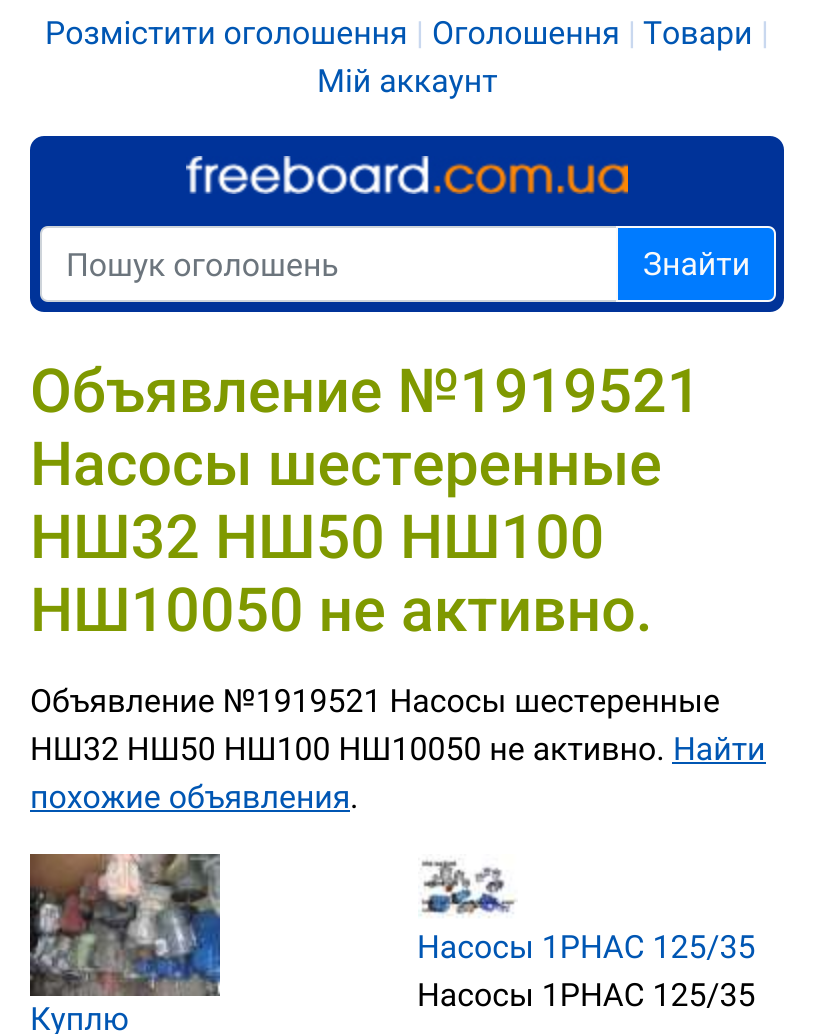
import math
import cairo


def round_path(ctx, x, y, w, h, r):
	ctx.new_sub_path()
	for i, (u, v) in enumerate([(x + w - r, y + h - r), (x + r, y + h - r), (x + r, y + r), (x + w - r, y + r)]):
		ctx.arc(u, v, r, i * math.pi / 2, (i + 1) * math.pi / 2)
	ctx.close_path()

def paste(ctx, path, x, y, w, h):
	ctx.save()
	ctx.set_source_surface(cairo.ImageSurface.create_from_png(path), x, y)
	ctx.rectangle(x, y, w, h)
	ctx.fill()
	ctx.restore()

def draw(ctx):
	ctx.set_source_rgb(1, 1, 1)
	ctx.paint()
	ctx.select_font_face('Roboto')
	ctx.set_font_size(32)
	ctx.set_source_rgb(0, 0.337, 0.702)
	ctx.move_to(45, 44)
	ctx.show_text('Розмістити оголошення')
	ctx.set_source_rgb(0.788, 0.847, 0.937)
	ctx.move_to(416, 44)
	ctx.show_text('|')
	ctx.set_source_rgb(0, 0.337, 0.702)
	ctx.move_to(432, 44)
	ctx.show_text('Оголошення')
	ctx.set_source_rgb(0.788, 0.847, 0.937)
	ctx.move_to(628, 44)
	ctx.show_text('|')
	ctx.set_source_rgb(0, 0.337, 0.702)
	ctx.move_to(643, 44)
	ctx.show_text('Товари')
	ctx.set_source_rgb(0.788, 0.847, 0.937)
	ctx.move_to(761, 44)
	ctx.show_text('|')
	ctx.set_source_rgb(0, 0.337, 0.702)
	ctx.move_to(317, 92)
	ctx.show_text('Мій аккаунт')
	ctx.set_source_rgb(0, 0.2, 0.6)
	round_path(ctx, 30, 136, 754, 176, 14)
	ctx.fill()
	paste(ctx, 'media/1.png', 186, 156, 442, 38)
	ctx.set_source_rgb(1, 1, 1)
	ctx.new_path()
	ctx.move_to(48, 227)
	ctx.line_to(617, 227)
	ctx.line_to(617, 301)
	ctx.line_to(48, 301)
	ctx.curve_to(44, 301, 41, 298, 41, 294)
	ctx.line_to(41, 234)
	ctx.curve_to(41, 230, 44, 227, 48, 227)
	ctx.close_path()
	ctx.fill_preserve()
	ctx.set_source_rgb(0.808, 0.831, 0.855)
	ctx.stroke()
	ctx.set_source_rgb(0.424, 0.459, 0.49)
	ctx.move_to(66, 276)
	ctx.show_text('Пошук оголошень')
	ctx.set_source_rgb(0, 0.482, 1)
	ctx.new_path()
	ctx.move_to(617, 227)
	ctx.line_to(768, 227)
	ctx.curve_to(772, 227, 775, 230, 775, 234)
	ctx.line_to(775, 294)
	ctx.curve_to(775, 298, 772, 301, 768, 301)
	ctx.line_to(617, 301)
	ctx.close_path()
	ctx.fill_preserve()
	ctx.set_source_rgb(0.973, 0.976, 0.98)
	ctx.stroke()
	ctx.move_to(643, 275)
	ctx.show_text('Знайти')
	ctx.select_font_face('Roboto Medium')
	ctx.set_font_size(60.75)
	ctx.set_source_rgb(0.498, 0.6, 0)
	for x, y, s in [
		(30, 412, 'Объявление №1919521'),
		(30, 485, 'Насосы шестеренные'),
		(30, 558, 'НШ32 НШ50 НШ100'),
		(30, 631, 'НШ10050 не активно.'),
	]:
		ctx.move_to(x, y)
		ctx.show_text(s)
	ctx.select_font_face('Roboto')
	ctx.set_font_size(32)
	ctx.set_source_rgb(0, 0, 0)
	ctx.move_to(30, 712)
	ctx.show_text('Объявление №1919521 Насосы шестеренные')
	ctx.move_to(30, 760)
	ctx.show_text('НШ32 НШ50 НШ100 НШ10050 не активно.')
	ctx.set_source_rgb(0, 0.337, 0.702)
	ctx.move_to(673, 760)
	ctx.show_text('Найти')
	ctx.rectangle(672, 762, 94, 2)
	ctx.fill()
	ctx.move_to(30, 808)
	ctx.show_text('похожие объявления')
	ctx.rectangle(30, 810, 320, 2)
	ctx.fill()
	ctx.set_source_rgb(0, 0, 0)
	ctx.move_to(350, 808)
	ctx.show_text('.')
	paste(ctx, 'media/2.png', 418, 854, 100, 65)
	ctx.set_source_rgb(0, 0.337, 0.702)
	ctx.move_to(417, 958)
	ctx.show_text('Насосы 1РНАС 125/35')
	ctx.set_source_rgb(0, 0, 0)
	ctx.move_to(417, 1006)
	ctx.show_text('Насосы 1РНАС 125/35')
	paste(ctx, 'media/3.png', 30, 854, 190, 142)
	ctx.set_source_rgb(0, 0.337, 0.702)
	ctx.move_to(30, 1030)
	ctx.show_text('Куплю')


surface = cairo.ImageSurface(cairo.FORMAT_RGB24, 814, 1034)
ctx = cairo.Context(surface)
options = cairo.FontOptions()
options.set_hint_metrics(cairo.HINT_METRICS_OFF)
options.set_hint_style(cairo.HINT_STYLE_NONE)
ctx.set_font_options(options)
ctx.set_miter_limit(4)
draw(ctx)
surface.write_to_png('image.png')
